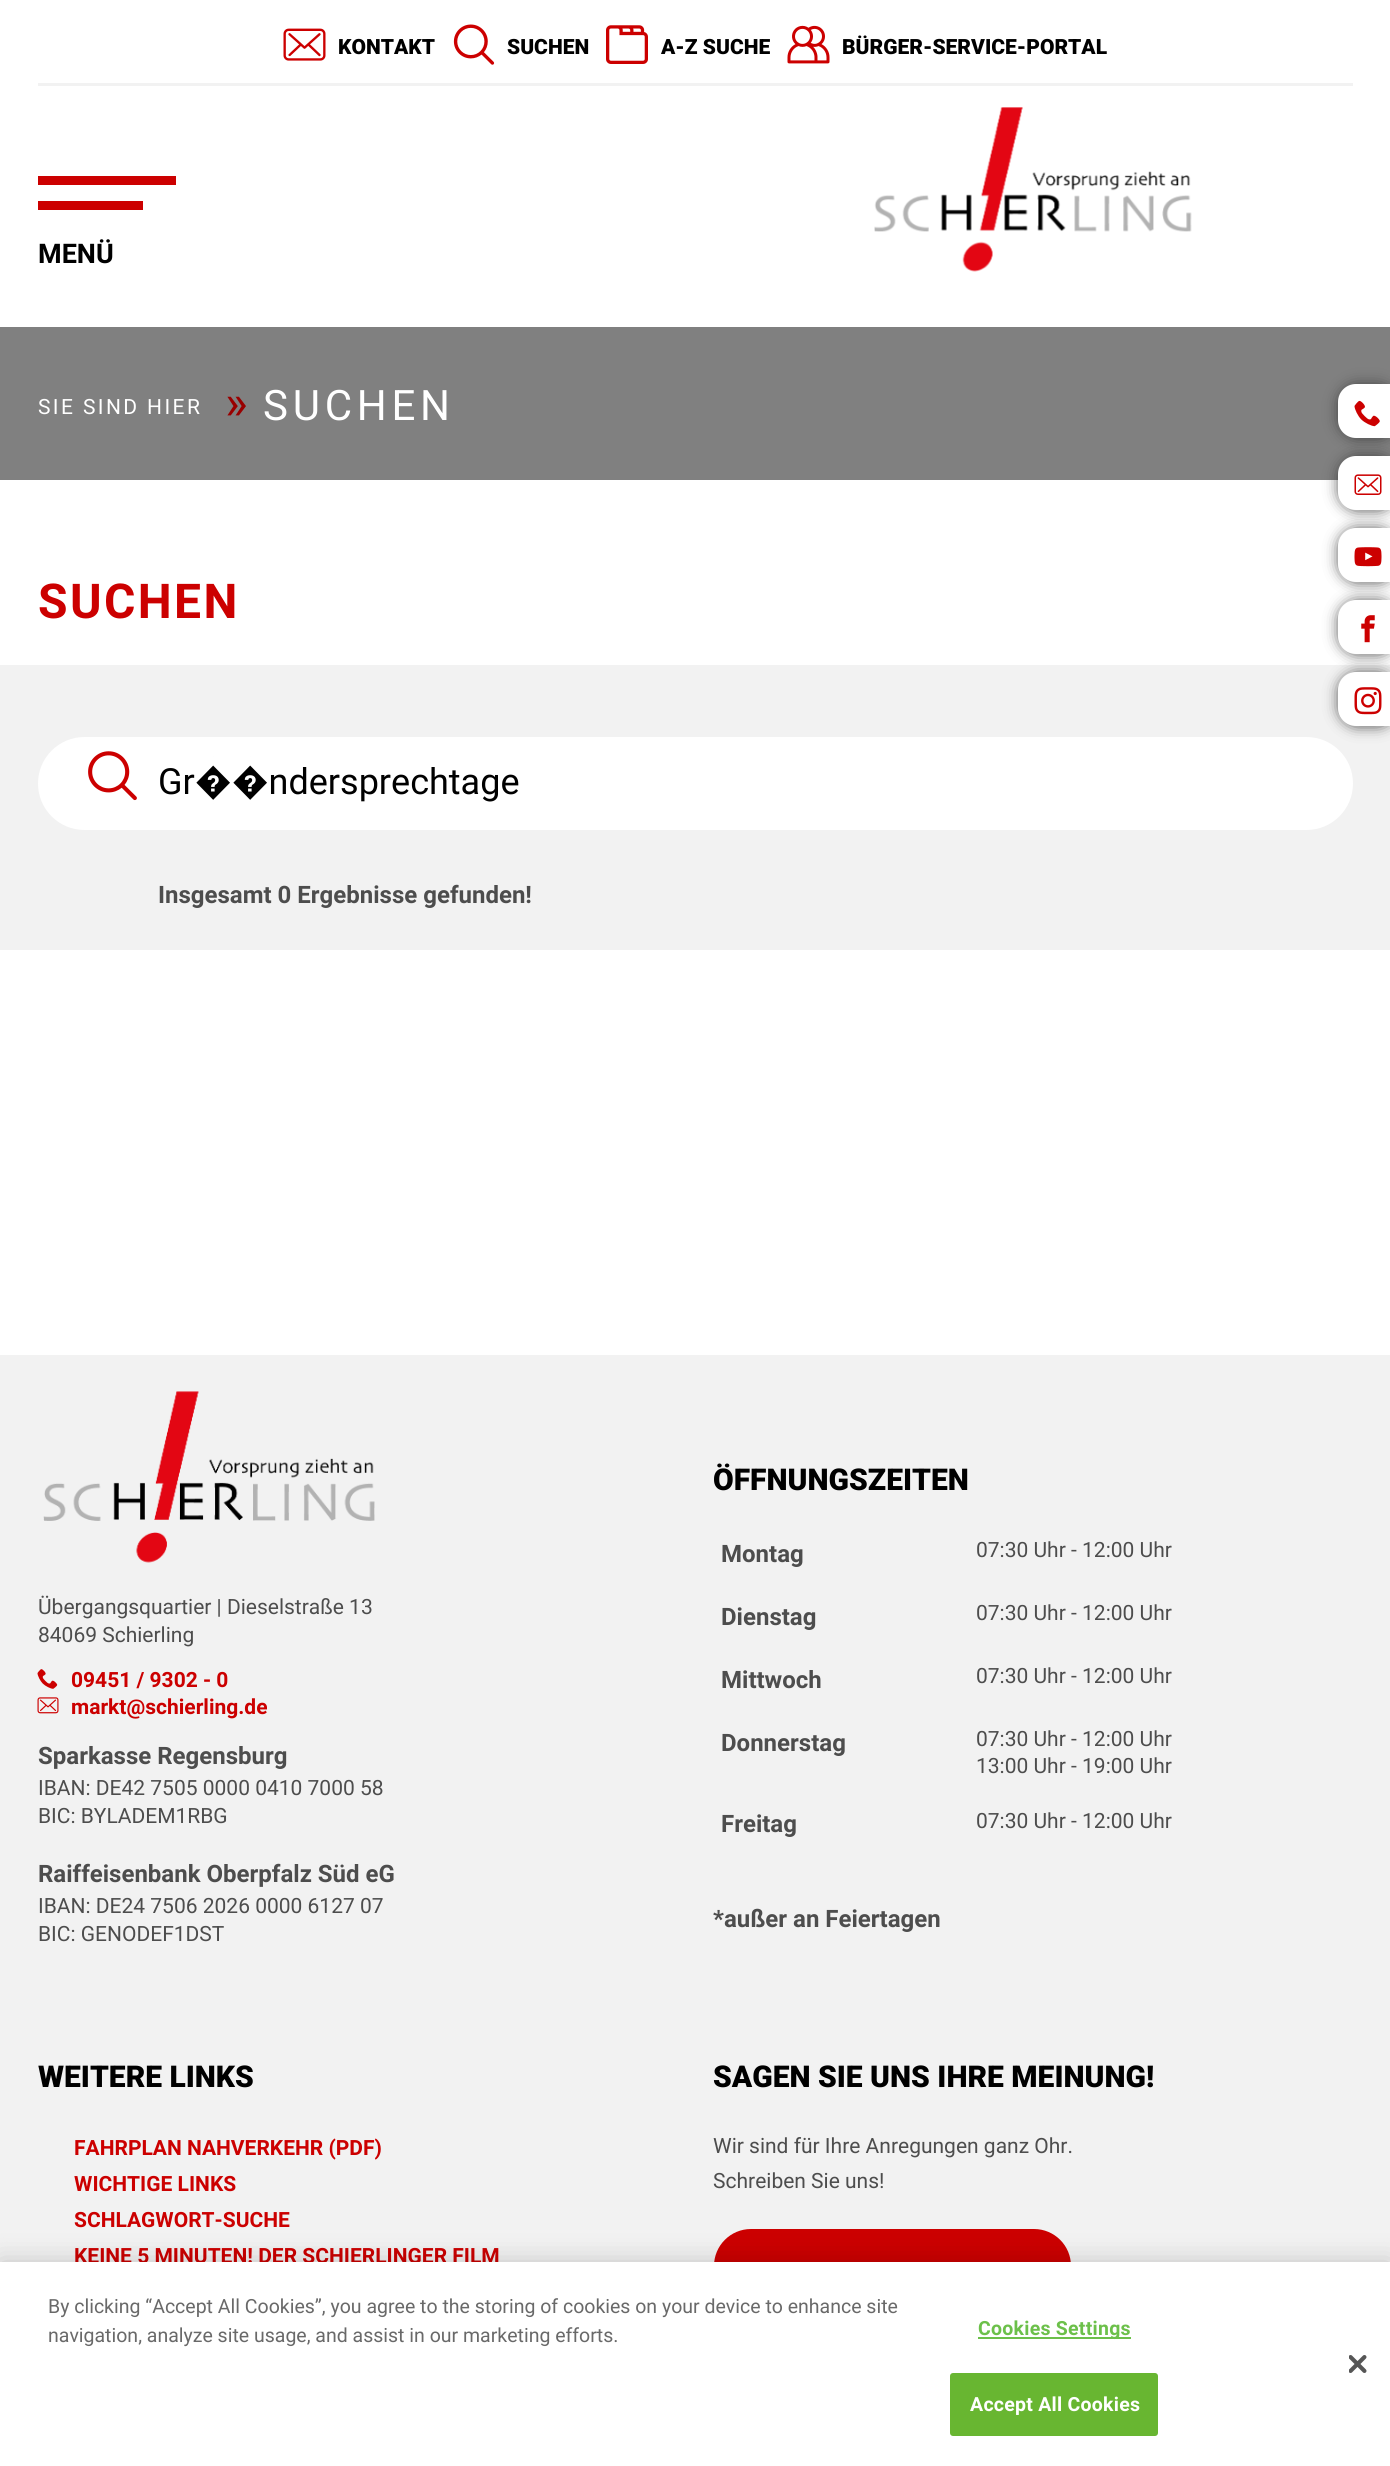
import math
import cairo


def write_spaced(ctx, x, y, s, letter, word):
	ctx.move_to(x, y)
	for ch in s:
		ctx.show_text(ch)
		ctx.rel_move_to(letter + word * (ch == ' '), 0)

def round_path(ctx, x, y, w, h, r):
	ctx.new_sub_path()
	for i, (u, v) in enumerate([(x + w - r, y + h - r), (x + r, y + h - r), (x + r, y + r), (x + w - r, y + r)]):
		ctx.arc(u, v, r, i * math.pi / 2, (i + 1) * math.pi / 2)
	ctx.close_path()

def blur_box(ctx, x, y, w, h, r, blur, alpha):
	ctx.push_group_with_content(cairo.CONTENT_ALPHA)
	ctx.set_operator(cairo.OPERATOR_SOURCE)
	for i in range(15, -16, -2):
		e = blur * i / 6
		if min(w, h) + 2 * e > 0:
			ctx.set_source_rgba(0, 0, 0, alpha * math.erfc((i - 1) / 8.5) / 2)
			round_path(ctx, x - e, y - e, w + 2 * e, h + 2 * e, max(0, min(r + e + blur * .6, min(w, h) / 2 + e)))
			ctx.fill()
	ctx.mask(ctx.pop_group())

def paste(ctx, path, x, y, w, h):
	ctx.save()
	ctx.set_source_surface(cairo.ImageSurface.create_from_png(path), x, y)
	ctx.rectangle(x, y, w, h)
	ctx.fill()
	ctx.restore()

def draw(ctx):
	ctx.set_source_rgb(1, 1, 1)
	ctx.paint()
	ctx.set_source_rgb(0.949, 0.949, 0.949)
	ctx.rectangle(38, 83, 1315, 3)
	ctx.fill()
	paste(ctx, 'media/1.png', 283, 28, 43, 33)
	ctx.select_font_face('Roboto Black')
	ctx.set_font_size(21)
	ctx.set_source_rgb(0, 0, 0)
	ctx.move_to(338, 54)
	ctx.show_text('KONTAKT')
	paste(ctx, 'media/2.png', 453, 24, 42, 41)
	ctx.move_to(507, 54)
	ctx.show_text('SUCHEN')
	paste(ctx, 'media/3.png', 606, 25, 42, 39)
	ctx.move_to(661, 54)
	ctx.show_text('A-Z SUCHE')
	paste(ctx, 'media/4.png', 787, 25, 43, 39)
	ctx.move_to(842, 54)
	ctx.show_text('BÜRGER-SERVICE-PORTAL')
	ctx.set_source_rgb(0.8, 0, 0)
	ctx.rectangle(38, 176, 138, 9)
	ctx.fill()
	ctx.rectangle(38, 201, 105, 9)
	ctx.fill()
	ctx.select_font_face('Roboto', cairo.FONT_SLANT_NORMAL, cairo.FONT_WEIGHT_BOLD)
	ctx.set_font_size(27)
	ctx.set_source_rgb(0, 0, 0)
	ctx.move_to(38, 263)
	ctx.show_text('MENÜ')
	paste(ctx, 'media/5.png', 874, 107, 318, 165)
	ctx.set_source_rgb(0.502, 0.502, 0.502)
	ctx.rectangle(0, 327, 1390, 153)
	ctx.fill()
	ctx.select_font_face('Roboto')
	ctx.set_font_size(21)
	ctx.set_source_rgb(1, 1, 1)
	write_spaced(ctx, 38, 414, 'SIE SIND HIER', 2.4, 0)
	ctx.set_font_size(48)
	ctx.set_source_rgb(0.6, 0, 0)
	write_spaced(ctx, 225, 419, '»', 2.4, 0)
	ctx.set_font_size(42)
	ctx.set_source_rgb(1, 1, 1)
	write_spaced(ctx, 263, 420, 'SUCHEN', 4.75, 0)
	ctx.set_source_rgb(0.2, 0.2, 0.2)
	blur_box(ctx, 1340, 386, 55, 51, 17, 7.5, 1)
	ctx.set_source_rgb(1, 1, 1)
	ctx.new_path()
	ctx.move_to(1356, 384)
	ctx.line_to(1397, 384)
	ctx.line_to(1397, 438)
	ctx.line_to(1356, 438)
	ctx.curve_to(1346, 438, 1338, 430, 1338, 420)
	ctx.line_to(1338, 402)
	ctx.curve_to(1338, 392, 1346, 384, 1356, 384)
	ctx.close_path()
	ctx.fill()
	paste(ctx, 'media/6.png', 1354, 400, 26, 27)
	ctx.set_source_rgb(0.2, 0.2, 0.2)
	blur_box(ctx, 1340, 458, 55, 51, 17, 7.5, 1)
	ctx.set_source_rgb(1, 1, 1)
	ctx.new_path()
	ctx.move_to(1356, 456)
	ctx.line_to(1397, 456)
	ctx.line_to(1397, 510)
	ctx.line_to(1356, 510)
	ctx.curve_to(1346, 510, 1338, 502, 1338, 492)
	ctx.line_to(1338, 474)
	ctx.curve_to(1338, 464, 1346, 456, 1356, 456)
	ctx.close_path()
	ctx.fill()
	paste(ctx, 'media/7.png', 1354, 474, 28, 21)
	ctx.set_source_rgb(0.2, 0.2, 0.2)
	blur_box(ctx, 1340, 530, 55, 51, 17, 7.5, 1)
	ctx.set_source_rgb(1, 1, 1)
	ctx.new_path()
	ctx.move_to(1356, 528)
	ctx.line_to(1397, 528)
	ctx.line_to(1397, 582)
	ctx.line_to(1356, 582)
	ctx.curve_to(1346, 582, 1338, 574, 1338, 564)
	ctx.line_to(1338, 546)
	ctx.curve_to(1338, 536, 1346, 528, 1356, 528)
	ctx.close_path()
	ctx.fill()
	paste(ctx, 'media/8.png', 1354, 547, 28, 20)
	ctx.set_source_rgb(0.949, 0.949, 0.949)
	ctx.rectangle(0, 665, 1390, 285)
	ctx.fill()
	ctx.set_source_rgb(0.2, 0.2, 0.2)
	blur_box(ctx, 1340, 602, 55, 51, 17, 7.5, 1)
	ctx.set_source_rgb(1, 1, 1)
	ctx.new_path()
	ctx.move_to(1356, 600)
	ctx.line_to(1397, 600)
	ctx.line_to(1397, 654)
	ctx.line_to(1356, 654)
	ctx.curve_to(1346, 654, 1338, 646, 1338, 636)
	ctx.line_to(1338, 618)
	ctx.curve_to(1338, 608, 1346, 600, 1356, 600)
	ctx.close_path()
	ctx.fill()
	paste(ctx, 'media/9.png', 1361, 615, 14, 28)
	round_path(ctx, 38, 737, 1315, 93, 46.5)
	ctx.fill()
	ctx.set_source_rgb(0.2, 0.2, 0.2)
	blur_box(ctx, 1340, 674, 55, 51, 17, 7.5, 1)
	ctx.set_source_rgb(1, 1, 1)
	ctx.new_path()
	ctx.move_to(1356, 672)
	ctx.line_to(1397, 672)
	ctx.line_to(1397, 726)
	ctx.line_to(1356, 726)
	ctx.curve_to(1346, 726, 1338, 718, 1338, 708)
	ctx.line_to(1338, 690)
	ctx.curve_to(1338, 680, 1346, 672, 1356, 672)
	ctx.close_path()
	ctx.fill()
	paste(ctx, 'media/10.png', 1354, 687, 28, 28)
	ctx.select_font_face('Roboto', cairo.FONT_SLANT_NORMAL, cairo.FONT_WEIGHT_BOLD)
	ctx.set_font_size(48)
	ctx.set_source_rgb(0.8, 0, 0)
	write_spaced(ctx, 38, 618, 'SUCHEN', 2.4, 0)
	paste(ctx, 'media/11.png', 88, 751, 49, 50)
	ctx.select_font_face('Roboto')
	ctx.set_font_size(36)
	ctx.set_source_rgb(0, 0, 0)
	ctx.move_to(158, 794)
	ctx.show_text('Gr��ndersprechtage')
	ctx.select_font_face('Roboto', cairo.FONT_SLANT_NORMAL, cairo.FONT_WEIGHT_BOLD)
	ctx.set_font_size(24)
	ctx.set_source_rgb(0.302, 0.302, 0.302)
	ctx.move_to(158, 903)
	ctx.show_text('Insgesamt 0 Ergebnisse gefunden!')
	ctx.set_source_rgb(0.949, 0.949, 0.949)
	ctx.rectangle(0, 1355, 1390, 907)
	ctx.fill()
	paste(ctx, 'media/12.png', 43, 1391, 332, 172)
	ctx.select_font_face('Roboto')
	ctx.set_font_size(21)
	ctx.set_source_rgb(0.302, 0.302, 0.302)
	ctx.move_to(38, 1614)
	ctx.show_text('Übergangsquartier | Dieselstraße 13')
	ctx.move_to(38, 1642)
	ctx.show_text('84069 Schierling')
	paste(ctx, 'media/13.png', 37, 1669, 21, 20)
	ctx.select_font_face('Roboto', cairo.FONT_SLANT_NORMAL, cairo.FONT_WEIGHT_BOLD)
	ctx.set_source_rgb(0.8, 0, 0)
	ctx.move_to(71, 1687)
	ctx.show_text('09451 / 9302 - 0')
	paste(ctx, 'media/14.png', 37, 1697, 22, 17)
	ctx.move_to(71, 1714)
	ctx.show_text('markt@schierling.de')
	ctx.set_font_size(24)
	ctx.set_source_rgb(0.302, 0.302, 0.302)
	ctx.move_to(38, 1764)
	ctx.show_text('Sparkasse Regensburg')
	ctx.select_font_face('Roboto')
	ctx.set_font_size(21)
	ctx.move_to(38, 1795)
	ctx.show_text('IBAN: DE42 7505 0000 0410 7000 58')
	ctx.move_to(38, 1823)
	ctx.show_text('BIC: BYLADEM1RBG')
	ctx.select_font_face('Roboto', cairo.FONT_SLANT_NORMAL, cairo.FONT_WEIGHT_BOLD)
	ctx.set_font_size(24)
	ctx.move_to(38, 1882)
	ctx.show_text('Raiffeisenbank Oberpfalz Süd eG')
	ctx.select_font_face('Roboto')
	ctx.set_font_size(21)
	ctx.move_to(38, 1913)
	ctx.show_text('IBAN: DE24 7506 2026 0000 6127 07')
	ctx.move_to(38, 1941)
	ctx.show_text('BIC: GENODEF1DST')
	ctx.select_font_face('Roboto Black')
	ctx.set_font_size(30)
	ctx.set_source_rgb(0, 0, 0)
	ctx.move_to(713, 1490)
	ctx.show_text('ÖFFNUNGSZEITEN')
	ctx.select_font_face('Roboto', cairo.FONT_SLANT_NORMAL, cairo.FONT_WEIGHT_BOLD)
	ctx.set_font_size(24)
	ctx.set_source_rgb(0.302, 0.302, 0.302)
	ctx.move_to(721, 1562)
	ctx.show_text('Montag')
	ctx.select_font_face('Roboto')
	ctx.set_font_size(21)
	ctx.move_to(976, 1557)
	ctx.show_text('07:30 Uhr - 12:00 Uhr')
	ctx.select_font_face('Roboto', cairo.FONT_SLANT_NORMAL, cairo.FONT_WEIGHT_BOLD)
	ctx.set_font_size(24)
	ctx.move_to(721, 1625)
	ctx.show_text('Dienstag')
	ctx.select_font_face('Roboto')
	ctx.set_font_size(21)
	ctx.move_to(976, 1620)
	ctx.show_text('07:30 Uhr - 12:00 Uhr')
	ctx.select_font_face('Roboto', cairo.FONT_SLANT_NORMAL, cairo.FONT_WEIGHT_BOLD)
	ctx.set_font_size(24)
	ctx.move_to(721, 1688)
	ctx.show_text('Mittwoch')
	ctx.select_font_face('Roboto')
	ctx.set_font_size(21)
	ctx.move_to(976, 1683)
	ctx.show_text('07:30 Uhr - 12:00 Uhr')
	ctx.select_font_face('Roboto', cairo.FONT_SLANT_NORMAL, cairo.FONT_WEIGHT_BOLD)
	ctx.set_font_size(24)
	ctx.move_to(721, 1751)
	ctx.show_text('Donnerstag')
	ctx.select_font_face('Roboto')
	ctx.set_font_size(21)
	ctx.move_to(976, 1746)
	ctx.show_text('07:30 Uhr - 12:00 Uhr')
	ctx.move_to(976, 1773)
	ctx.show_text('13:00 Uhr - 19:00 Uhr')
	ctx.select_font_face('Roboto', cairo.FONT_SLANT_NORMAL, cairo.FONT_WEIGHT_BOLD)
	ctx.set_font_size(24)
	ctx.move_to(721, 1832)
	ctx.show_text('Freitag')
	ctx.select_font_face('Roboto')
	ctx.set_font_size(21)
	ctx.move_to(976, 1828)
	ctx.show_text('07:30 Uhr - 12:00 Uhr')
	ctx.select_font_face('Roboto', cairo.FONT_SLANT_NORMAL, cairo.FONT_WEIGHT_BOLD)
	ctx.set_font_size(24)
	ctx.move_to(713, 1927)
	ctx.show_text('*außer an Feiertagen')
	ctx.select_font_face('Roboto Black')
	ctx.set_font_size(30)
	ctx.set_source_rgb(0, 0, 0)
	ctx.move_to(38, 2087)
	ctx.show_text('WEITERE LINKS')
	ctx.select_font_face('Roboto', cairo.FONT_SLANT_NORMAL, cairo.FONT_WEIGHT_BOLD)
	ctx.set_font_size(21)
	ctx.set_source_rgb(0.8, 0, 0)
	for x, y, s in [
		(74, 2155, 'FAHRPLAN NAHVERKEHR (PDF)'),
		(74, 2191, 'WICHTIGE LINKS'),
		(74, 2227, 'SCHLAGWORT-SUCHE'),
		(74, 2263, 'KEINE 5 MINUTEN! DER SCHIERLINGER FILM'),
	]:
		ctx.move_to(x, y)
		ctx.show_text(s)
	ctx.select_font_face('Roboto Black')
	ctx.set_font_size(30)
	ctx.set_source_rgb(0, 0, 0)
	ctx.move_to(713, 2087)
	ctx.show_text('SAGEN SIE UNS IHRE MEINUNG!')
	ctx.select_font_face('Roboto')
	ctx.set_font_size(21)
	ctx.set_source_rgb(0.302, 0.302, 0.302)
	ctx.move_to(713, 2153)
	ctx.show_text('Wir sind für Ihre Anregungen ganz Ohr.')
	ctx.move_to(713, 2188)
	ctx.show_text('Schreiben Sie uns!')
	ctx.set_source_rgb(0.8, 0, 0)
	round_path(ctx, 714, 2229, 357, 74, 37)
	ctx.fill()
	ctx.set_source_rgb(0, 0, 0)
	blur_box(ctx, 0, 2262, 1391, 204, 0, 13.5, 0.2)
	ctx.set_source_rgb(1, 1, 1)
	ctx.rectangle(0, 2262, 1390, 204)
	ctx.fill()
	ctx.set_font_size(19.5)
	ctx.set_source_rgb(0.412, 0.412, 0.412)
	ctx.move_to(48, 2313)
	ctx.show_text('By clicking “Accept All Cookies”, you agree to the storing of cookies on your device to enhance site')
	ctx.move_to(48, 2342)
	ctx.show_text('navigation, analyze site usage, and assist in our marketing efforts.')
	ctx.set_source_rgb(0.424, 0.753, 0.29)
	ctx.rectangle(978, 2337, 153, 2)
	ctx.fill()
	ctx.select_font_face('Roboto', cairo.FONT_SLANT_NORMAL, cairo.FONT_WEIGHT_BOLD)
	write_spaced(ctx, 978, 2335, 'Cookies Settings', 0.25, 0)
	ctx.set_source_rgb(0.408, 0.714, 0.192)
	round_path(ctx, 951, 2374, 206, 61, 2)
	ctx.fill_preserve()
	ctx.stroke()
	ctx.set_source_rgb(1, 1, 1)
	write_spaced(ctx, 970, 2411, 'Accept All Cookies', 0.25, 0)
	paste(ctx, 'media/15.png', 1349, 2355, 18, 18)


surface = cairo.ImageSurface(cairo.FORMAT_RGB24, 1390, 2466)
ctx = cairo.Context(surface)
options = cairo.FontOptions()
options.set_hint_metrics(cairo.HINT_METRICS_OFF)
options.set_hint_style(cairo.HINT_STYLE_NONE)
ctx.set_font_options(options)
ctx.set_miter_limit(4)
draw(ctx)
surface.write_to_png('image.png')
